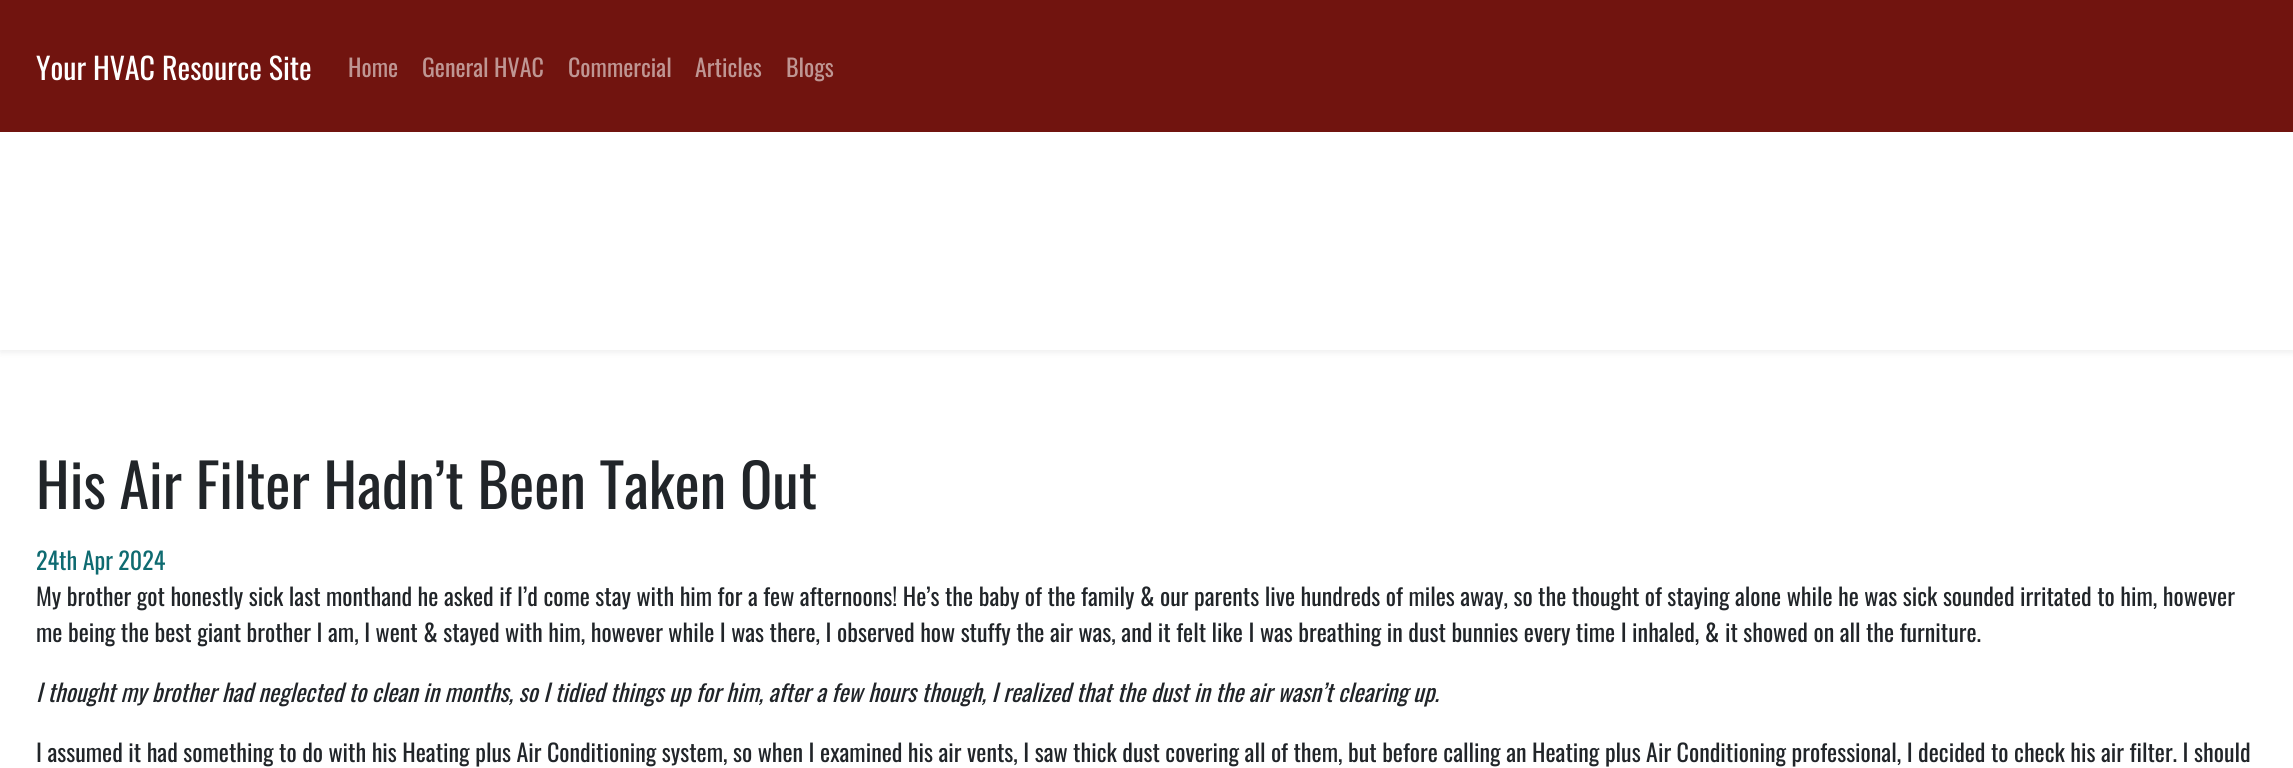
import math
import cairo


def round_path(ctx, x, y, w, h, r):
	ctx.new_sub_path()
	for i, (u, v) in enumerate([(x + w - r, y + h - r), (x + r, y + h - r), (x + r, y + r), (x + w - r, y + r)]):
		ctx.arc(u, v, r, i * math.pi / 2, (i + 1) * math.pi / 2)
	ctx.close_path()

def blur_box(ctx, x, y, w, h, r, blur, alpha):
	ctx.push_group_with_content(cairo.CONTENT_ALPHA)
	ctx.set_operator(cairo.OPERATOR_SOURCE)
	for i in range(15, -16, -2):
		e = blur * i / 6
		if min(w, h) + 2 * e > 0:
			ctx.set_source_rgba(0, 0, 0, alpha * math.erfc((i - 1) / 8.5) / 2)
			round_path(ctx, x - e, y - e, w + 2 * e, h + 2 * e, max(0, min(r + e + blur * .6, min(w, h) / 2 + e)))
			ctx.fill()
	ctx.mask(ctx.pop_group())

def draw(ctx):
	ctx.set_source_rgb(1, 1, 1)
	ctx.paint()
	ctx.save()
	ctx.set_fill_rule(cairo.FILL_RULE_EVEN_ODD)
	ctx.new_path()
	ctx.move_to(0, 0)
	ctx.line_to(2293, 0)
	ctx.line_to(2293, 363)
	ctx.line_to(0, 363)
	ctx.close_path()
	ctx.move_to(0, 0)
	ctx.line_to(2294, 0)
	ctx.line_to(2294, 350)
	ctx.line_to(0, 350)
	ctx.close_path()
	ctx.clip()
	ctx.set_source_rgb(0.129, 0.145, 0.161)
	blur_box(ctx, 0, 3, 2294, 350, 0, 3, 0.07)
	ctx.restore()
	ctx.set_source_rgb(0.443, 0.082, 0.059)
	ctx.rectangle(0, 0, 2293, 132)
	ctx.fill()
	ctx.select_font_face('Oswald')
	ctx.set_font_size(30)
	ctx.set_source_rgb(1, 1, 1)
	ctx.move_to(36, 80)
	ctx.show_text('Your HVAC Resource Site')
	ctx.set_font_size(24)
	ctx.set_source_rgb(0.749, 0.588, 0.576)
	for x, y, s in [
		(348, 77, 'Home'),
		(422, 77, 'General HVAC'),
		(568, 77, 'Commercial'),
		(695, 77, 'Articles'),
		(786, 77, 'Blogs'),
	]:
		ctx.move_to(x, y)
		ctx.show_text(s)
	ctx.set_font_size(60)
	ctx.set_source_rgb(0.129, 0.145, 0.161)
	ctx.move_to(36, 509)
	ctx.show_text('His Air Filter Hadn’t Been Taken Out')
	ctx.set_font_size(24)
	ctx.set_source_rgb(0.059, 0.42, 0.443)
	ctx.move_to(36, 570)
	ctx.show_text('24th Apr 2024')
	ctx.set_source_rgb(0.129, 0.145, 0.161)
	ctx.move_to(36, 606)
	ctx.show_text('My brother got honestly sick last monthand he asked if I’d come stay with him for a few afternoons! He’s the baby of the family & our parents live hundreds of miles away, so the thought of staying alone while he was sick sounded irritated to him, however')
	ctx.move_to(36, 642)
	ctx.show_text('me being the best giant brother I am, I went & stayed with him, however while I was there, I observed how stuffy the air was, and it felt like I was breathing in dust bunnies every time I inhaled, & it showed on all the furniture.')
	ctx.select_font_face('Oswald', cairo.FONT_SLANT_ITALIC)
	ctx.move_to(36, 702)
	ctx.show_text('I thought my brother had neglected to clean in months, so I tidied things up for him, after a few hours though, I realized that the dust in the air wasn’t clearing up.')
	ctx.select_font_face('Oswald')
	ctx.move_to(36, 762)
	ctx.show_text('I assumed it had something to do with his Heating plus Air Conditioning system, so when I examined his air vents, I saw thick dust covering all of them, but before calling an Heating plus Air Conditioning professional, I decided to check his air filter. I should')


surface = cairo.ImageSurface(cairo.FORMAT_RGB24, 2293, 768)
ctx = cairo.Context(surface)
options = cairo.FontOptions()
options.set_hint_metrics(cairo.HINT_METRICS_OFF)
options.set_hint_style(cairo.HINT_STYLE_NONE)
ctx.set_font_options(options)
ctx.set_miter_limit(4)
draw(ctx)
surface.write_to_png('image.png')
